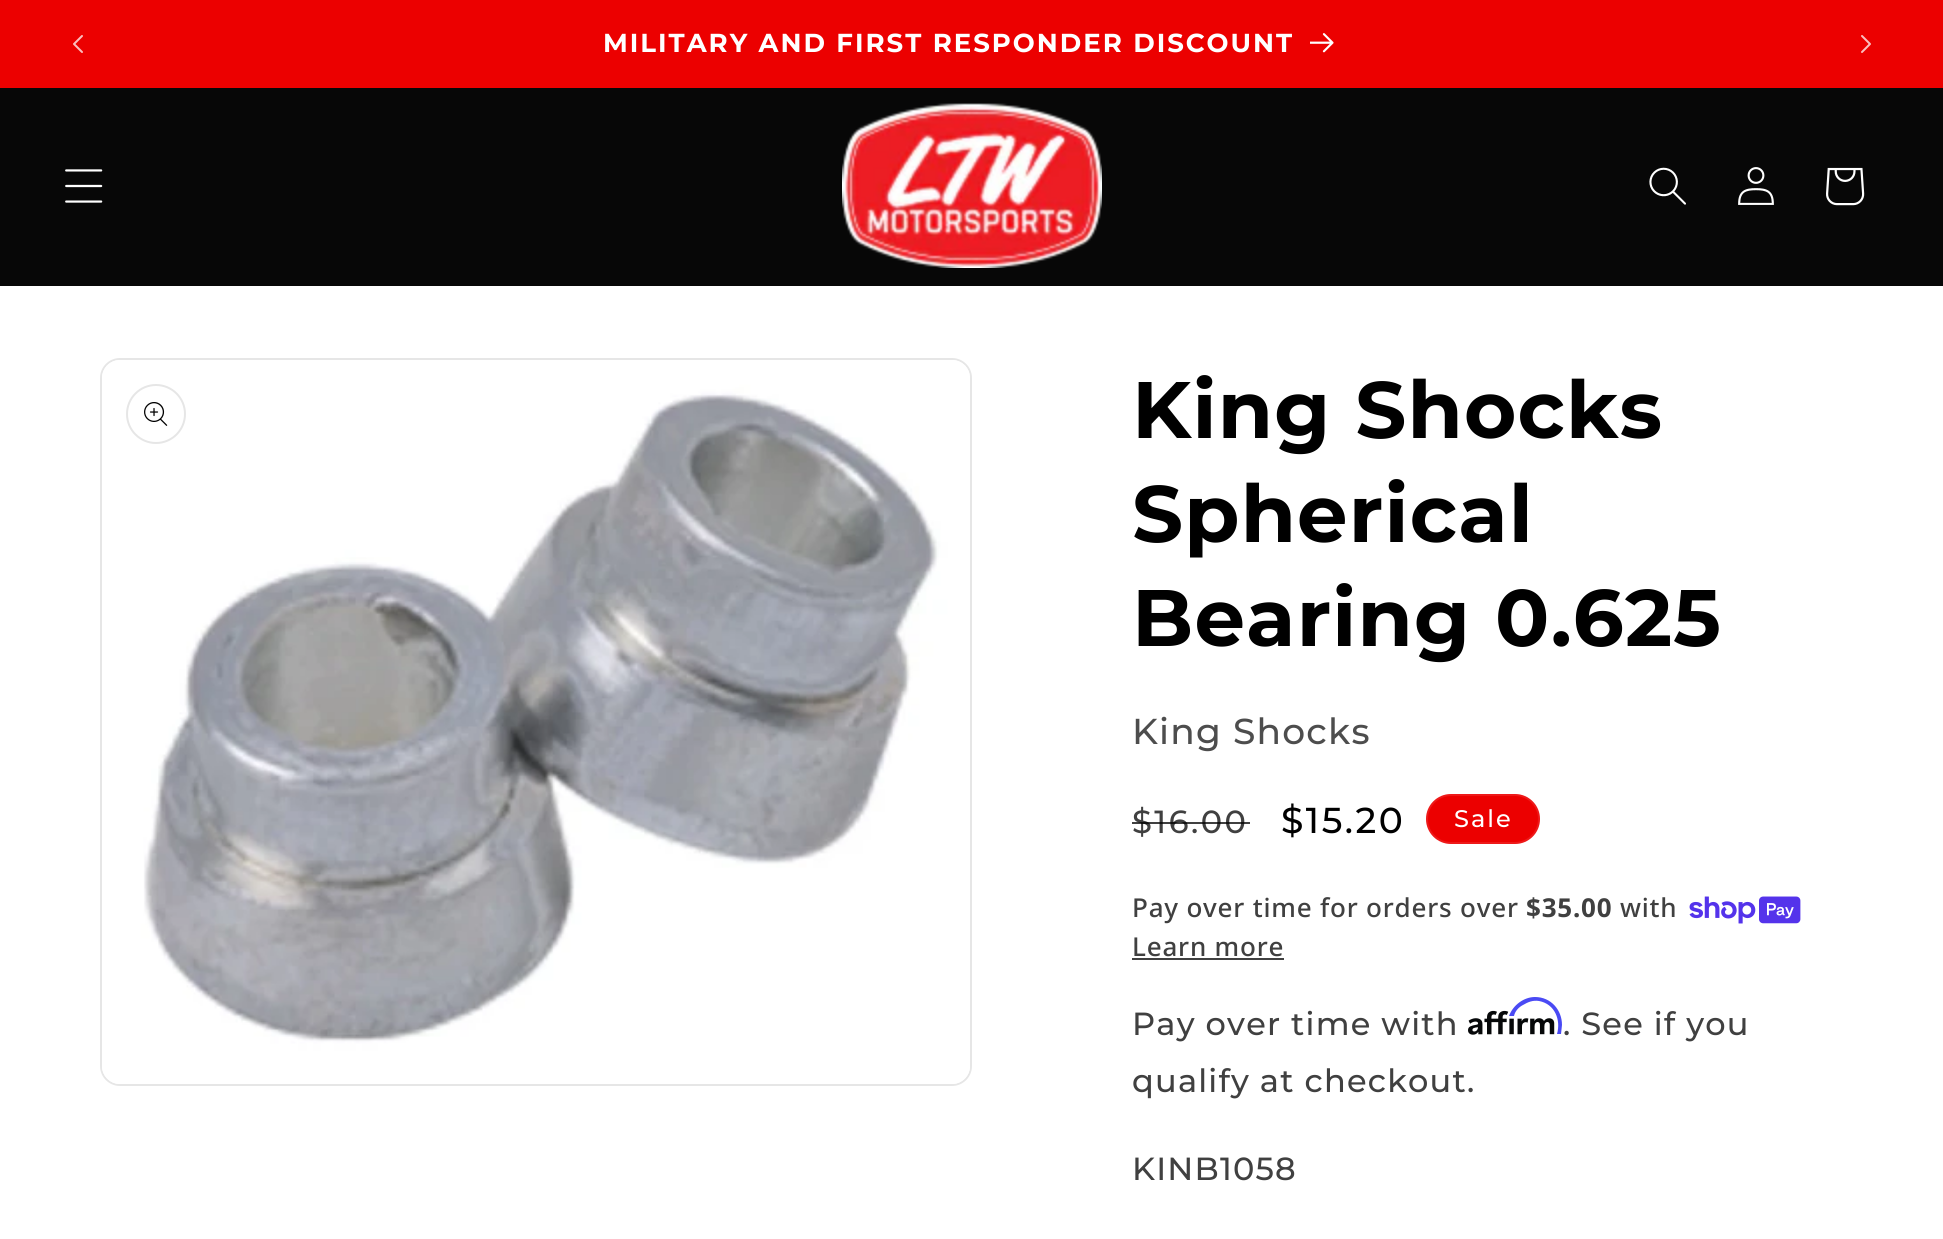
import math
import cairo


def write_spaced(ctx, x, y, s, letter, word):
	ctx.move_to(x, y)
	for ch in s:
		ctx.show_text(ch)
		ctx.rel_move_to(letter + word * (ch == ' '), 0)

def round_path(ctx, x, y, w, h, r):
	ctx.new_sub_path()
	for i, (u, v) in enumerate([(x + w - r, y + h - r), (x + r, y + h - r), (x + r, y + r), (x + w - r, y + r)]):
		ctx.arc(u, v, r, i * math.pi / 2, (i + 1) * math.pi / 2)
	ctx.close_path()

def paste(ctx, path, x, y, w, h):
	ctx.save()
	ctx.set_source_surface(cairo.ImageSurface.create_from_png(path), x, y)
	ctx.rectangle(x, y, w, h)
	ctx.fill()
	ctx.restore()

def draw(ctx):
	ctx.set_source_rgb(1, 1, 1)
	ctx.paint()
	ctx.set_source_rgb(0.925, 0, 0)
	ctx.rectangle(0, 0, 1943, 88)
	ctx.fill()
	paste(ctx, 'media/1.png', 73, 35, 10, 18)
	ctx.select_font_face('Montserrat', cairo.FONT_SLANT_NORMAL, cairo.FONT_WEIGHT_BOLD)
	ctx.set_font_size(26)
	ctx.set_source_rgb(1, 1, 1)
	write_spaced(ctx, 603, 52, 'MILITARY AND FIRST RESPONDER DISCOUNT', 2, 0)
	paste(ctx, 'media/2.png', 1310, 33, 24, 20)
	paste(ctx, 'media/3.png', 1861, 35, 10, 18)
	ctx.set_source_rgb(0.031, 0.031, 0.031)
	ctx.rectangle(0, 88, 1943, 198)
	ctx.fill()
	paste(ctx, 'media/4.png', 65, 169, 38, 34)
	paste(ctx, 'media/5.png', 842, 103, 260, 165)
	paste(ctx, 'media/6.png', 1649, 167, 37, 38)
	paste(ctx, 'media/7.png', 1738, 167, 36, 38)
	paste(ctx, 'media/8.png', 1826, 167, 39, 39)
	round_path(ctx, 101, 359, 870, 726, 19)
	ctx.set_source_rgb(0.902, 0.902, 0.902)
	ctx.stroke()
	paste(ctx, 'media/9.png', 102, 360, 868, 724)
	ctx.arc(156, 414, 29, 0, 2 * math.pi)
	ctx.stroke()
	paste(ctx, 'media/10.png', 144, 402, 24, 24)
	ctx.set_font_size(80)
	ctx.set_source_rgb(0, 0, 0)
	for x, y, s in [
		(1132, 438, 'King Shocks'),
		(1132, 542, 'Spherical'),
		(1132, 646, 'Bearing 0.625'),
	]:
		write_spaced(ctx, x, y, s, 1.2, 0)
	ctx.select_font_face('Montserrat Medium')
	ctx.set_font_size(36)
	ctx.set_source_rgb(0.302, 0.302, 0.302)
	write_spaced(ctx, 1132, 744, 'King Shocks', 1.2, 0)
	ctx.set_font_size(32)
	ctx.set_source_rgb(0.251, 0.251, 0.251)
	write_spaced(ctx, 1132, 833, '$16.00', 2.5, 0)
	ctx.set_source_rgba(0, 0, 0, 0.75)
	ctx.rectangle(1132, 822, 118, 2)
	ctx.fill()
	ctx.set_font_size(36)
	ctx.set_source_rgb(0, 0, 0)
	write_spaced(ctx, 1281, 833, '$15.20', 2.5, 0)
	ctx.set_source_rgb(0.925, 0, 0)
	round_path(ctx, 1426, 794, 114, 50, 25)
	ctx.fill()
	round_path(ctx, 1427, 795, 112, 48, 24)
	ctx.set_source_rgba(1, 1, 1, 0.1)
	ctx.stroke()
	ctx.set_font_size(24)
	ctx.set_source_rgb(1, 1, 1)
	write_spaced(ctx, 1454, 827, 'Sale', 2, 0)
	ctx.select_font_face('Noto Sans Medium')
	ctx.set_font_size(26)
	ctx.set_source_rgb(0.251, 0.251, 0.251)
	write_spaced(ctx, 1132, 917, 'Pay over time for orders over', 0.8, 0)
	ctx.select_font_face('Noto Sans', cairo.FONT_SLANT_NORMAL, cairo.FONT_WEIGHT_BOLD)
	write_spaced(ctx, 1526, 917, '$35.00', 0.8, 0)
	ctx.select_font_face('Noto Sans Medium')
	write_spaced(ctx, 1620, 917, 'with', 0.8, 0)
	paste(ctx, 'media/11.png', 1689, 896, 112, 28)
	write_spaced(ctx, 1132, 956, 'Learn more', 0.8, 0)
	ctx.rectangle(1132, 958, 152, 2)
	ctx.fill()
	ctx.select_font_face('Montserrat Medium')
	ctx.set_font_size(32)
	write_spaced(ctx, 1132, 1035, 'Pay over time with', 1.2, 0)
	paste(ctx, 'media/12.png', 1468, 1010, 87, 25)
	ctx.set_source_rgb(0.29, 0.29, 0.957)
	ctx.new_path()
	ctx.move_to(1535, 997)
	ctx.curve_to(1524, 997, 1513, 1005, 1509, 1016)
	ctx.line_to(1514, 1016)
	ctx.curve_to(1515, 1011, 1519, 1007, 1523, 1005)
	ctx.curve_to(1528, 1002, 1533, 1000, 1539, 1001)
	ctx.curve_to(1555, 1004, 1561, 1020, 1557, 1034)
	ctx.line_to(1561, 1034)
	ctx.line_to(1562, 1025)
	ctx.curve_to(1562, 1010, 1551, 997, 1535, 997)
	ctx.close_path()
	ctx.fill()
	ctx.set_source_rgb(0.251, 0.251, 0.251)
	for x, y, s in [
		(1563, 1035, '. See if you'),
		(1132, 1092, 'qualify at checkout.'),
		(1132, 1180, 'KINB1058'),
	]:
		write_spaced(ctx, x, y, s, 1.2, 0)


surface = cairo.ImageSurface(cairo.FORMAT_RGB24, 1943, 1239)
ctx = cairo.Context(surface)
options = cairo.FontOptions()
options.set_hint_metrics(cairo.HINT_METRICS_OFF)
options.set_hint_style(cairo.HINT_STYLE_NONE)
ctx.set_font_options(options)
ctx.set_miter_limit(4)
draw(ctx)
surface.write_to_png('image.png')
